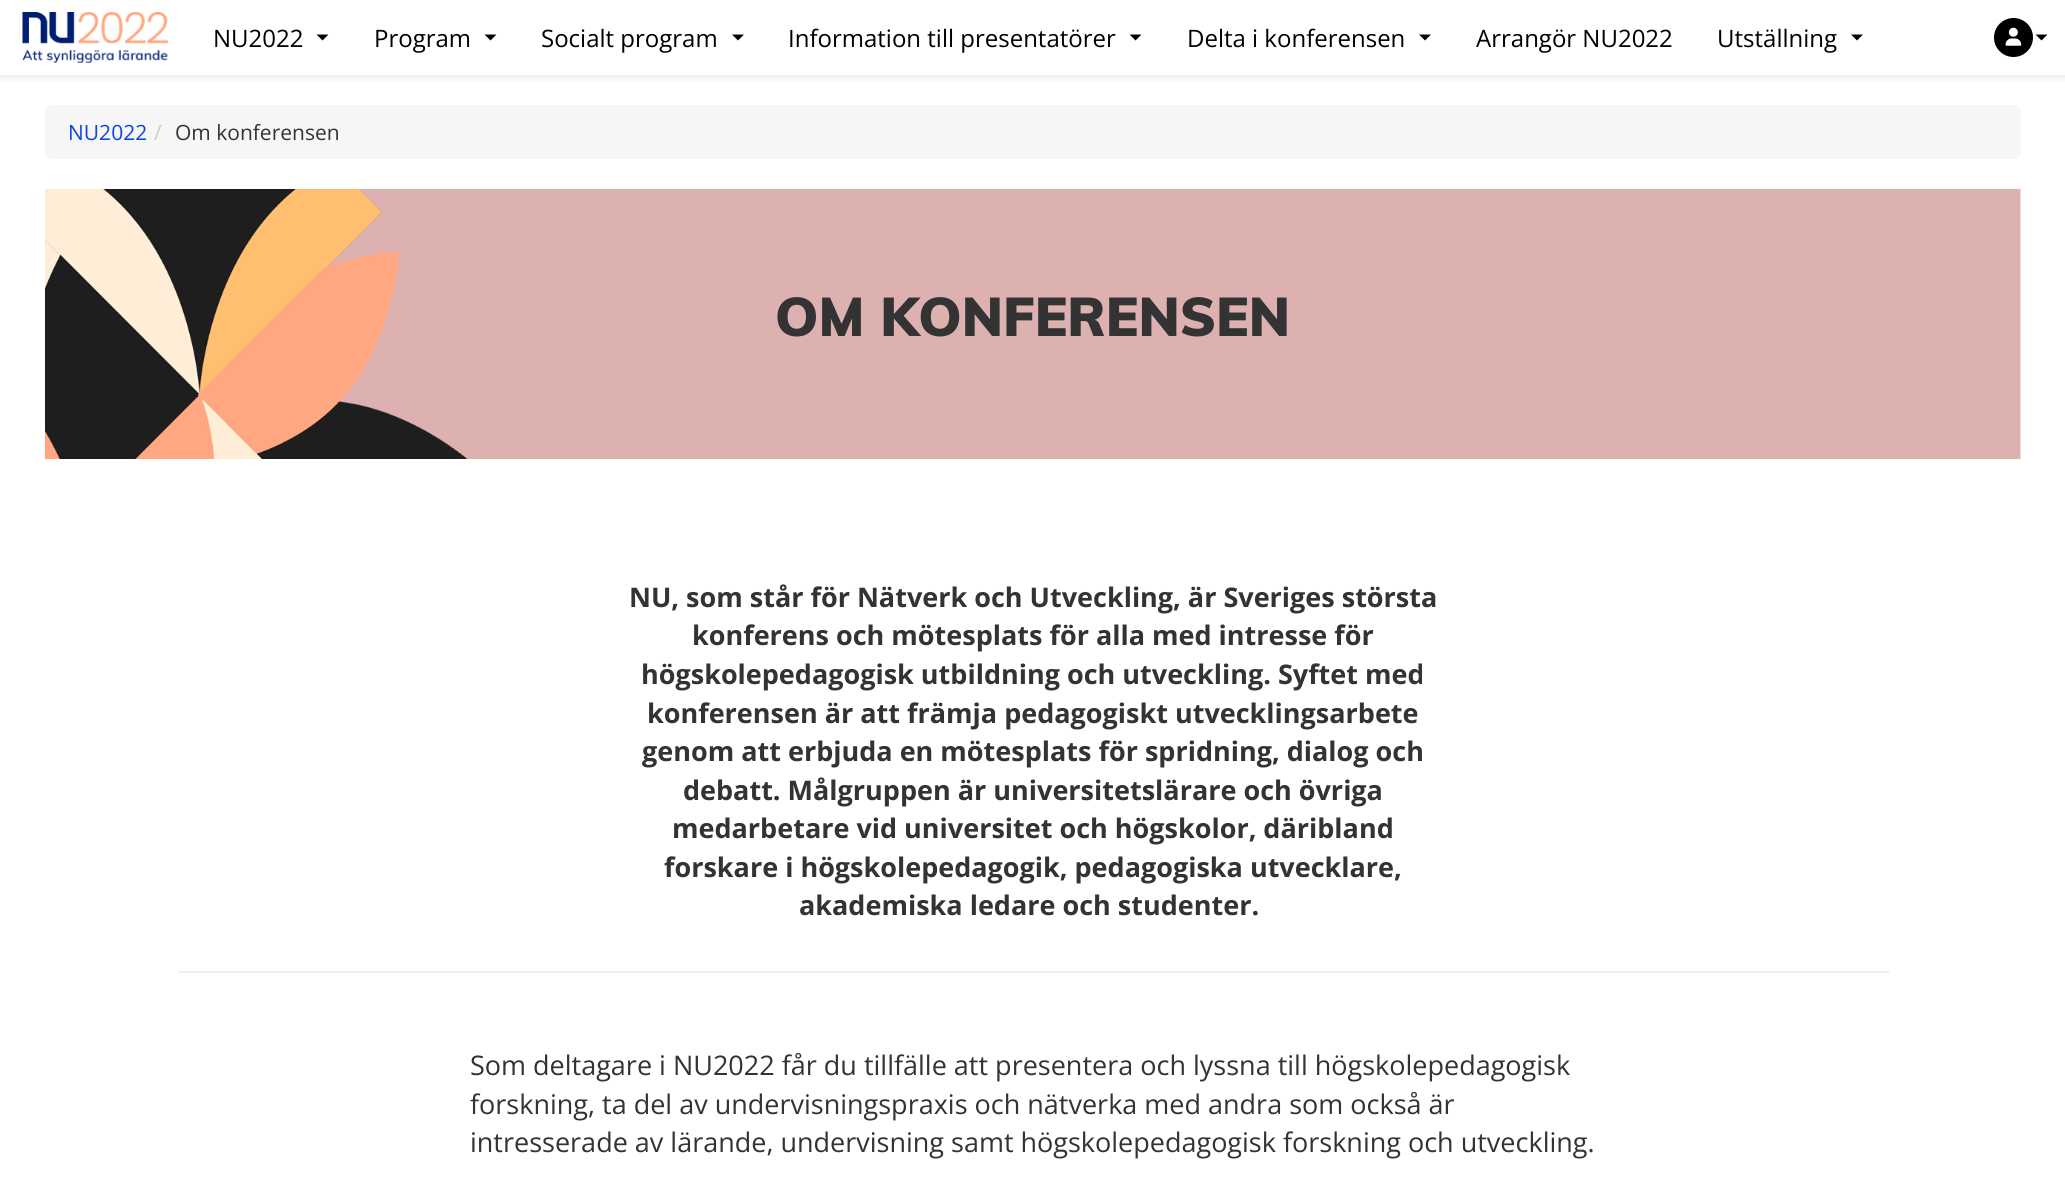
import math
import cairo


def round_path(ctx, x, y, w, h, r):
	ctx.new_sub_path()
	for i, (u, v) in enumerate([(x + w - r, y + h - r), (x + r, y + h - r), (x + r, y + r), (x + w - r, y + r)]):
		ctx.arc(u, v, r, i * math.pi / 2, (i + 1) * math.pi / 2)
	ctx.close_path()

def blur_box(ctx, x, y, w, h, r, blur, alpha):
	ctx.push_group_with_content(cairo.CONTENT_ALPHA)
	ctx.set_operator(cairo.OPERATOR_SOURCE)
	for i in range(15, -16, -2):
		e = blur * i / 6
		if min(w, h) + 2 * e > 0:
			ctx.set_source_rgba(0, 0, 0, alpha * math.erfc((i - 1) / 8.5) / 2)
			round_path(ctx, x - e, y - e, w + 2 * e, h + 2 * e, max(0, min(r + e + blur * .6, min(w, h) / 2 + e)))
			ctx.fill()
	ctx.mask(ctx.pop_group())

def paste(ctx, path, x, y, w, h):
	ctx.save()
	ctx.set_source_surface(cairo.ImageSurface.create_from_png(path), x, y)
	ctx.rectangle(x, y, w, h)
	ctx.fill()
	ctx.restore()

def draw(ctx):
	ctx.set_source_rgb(1, 1, 1)
	ctx.paint()
	ctx.save()
	ctx.rectangle(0, 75, 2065, 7)
	ctx.clip()
	ctx.set_source_rgb(0, 0, 0)
	blur_box(ctx, 0, 0, 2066, 75, 0, 7.5, 0.12)
	ctx.restore()
	paste(ctx, 'media/1.png', 22, 12, 146, 51)
	ctx.select_font_face('Open Sans')
	ctx.set_font_size(24)
	ctx.set_source_rgb(0, 0, 0)
	ctx.move_to(213, 47)
	ctx.show_text('NU2022')
	ctx.new_path()
	ctx.move_to(316.5, 34.5)
	ctx.line_to(328.5, 34.5)
	ctx.line_to(322.5, 40.5)
	ctx.close_path()
	ctx.fill()
	ctx.move_to(374, 47)
	ctx.show_text('Program')
	ctx.new_path()
	ctx.move_to(484.5, 34.5)
	ctx.line_to(496.5, 34.5)
	ctx.line_to(490.5, 40.5)
	ctx.close_path()
	ctx.fill()
	ctx.move_to(541, 47)
	ctx.show_text('Socialt program')
	ctx.new_path()
	ctx.move_to(732, 34.5)
	ctx.line_to(744, 34.5)
	ctx.line_to(738, 40.5)
	ctx.close_path()
	ctx.fill()
	ctx.move_to(788, 47)
	ctx.show_text('Information till presentatörer')
	ctx.new_path()
	ctx.move_to(1129.5, 34.5)
	ctx.line_to(1141.5, 34.5)
	ctx.line_to(1135.5, 40.5)
	ctx.close_path()
	ctx.fill()
	ctx.move_to(1187, 47)
	ctx.show_text('Delta i konferensen')
	ctx.new_path()
	ctx.move_to(1419, 34.5)
	ctx.line_to(1431, 34.5)
	ctx.line_to(1425, 40.5)
	ctx.close_path()
	ctx.fill()
	ctx.move_to(1476, 47)
	ctx.show_text('Arrangör NU2022')
	ctx.move_to(1717, 47)
	ctx.show_text('Utställning')
	ctx.new_path()
	ctx.move_to(1851, 34.5)
	ctx.line_to(1863, 34.5)
	ctx.line_to(1857, 40.5)
	ctx.close_path()
	ctx.fill()
	ctx.arc(2013.5, 37.5, 19.5, 0, 2 * math.pi)
	ctx.fill()
	paste(ctx, 'media/2.png', 2005, 27, 17, 19)
	ctx.new_path()
	ctx.move_to(2035.5, 34.5)
	ctx.line_to(2047.5, 34.5)
	ctx.line_to(2041.5, 40.5)
	ctx.close_path()
	ctx.fill()
	ctx.set_source_rgb(0.961, 0.961, 0.961)
	round_path(ctx, 45, 105, 1976, 54, 6)
	ctx.fill()
	ctx.set_font_size(21)
	ctx.set_source_rgb(0.051, 0.271, 0.894)
	ctx.move_to(68, 140)
	ctx.show_text('NU2022')
	ctx.set_source_rgb(0.8, 0.8, 0.8)
	ctx.move_to(154, 140)
	ctx.show_text('/')
	ctx.set_source_rgb(0.2, 0.2, 0.2)
	ctx.move_to(175, 140)
	ctx.show_text('Om konferensen')
	paste(ctx, 'media/3.png', 45, 189, 1976, 270)
	ctx.select_font_face('Muli Black')
	ctx.set_font_size(54)
	ctx.move_to(775, 336)
	ctx.show_text('OM KONFERENSEN')
	ctx.select_font_face('Open Sans', cairo.FONT_SLANT_NORMAL, cairo.FONT_WEIGHT_BOLD)
	ctx.set_font_size(27)
	for x, y, s in [
		(629, 607, 'NU, som står för Nätverk och Utveckling, är Sveriges största'),
		(692, 645, 'konferens och mötesplats för alla med intresse för'),
		(641, 684, 'högskolepedagogisk utbildning och utveckling. Syftet med'),
		(647, 723, 'konferensen är att främja pedagogiskt utvecklingsarbete'),
		(642, 761, 'genom att erbjuda en mötesplats för spridning, dialog och'),
		(683, 800, 'debatt. Målgruppen är universitetslärare och övriga'),
		(672, 838, 'medarbetare vid universitet och högskolor, däribland'),
		(664, 877, 'forskare i högskolepedagogik, pedagogiska utvecklare,'),
		(799, 915, 'akademiska ledare och studenter.'),
	]:
		ctx.move_to(x, y)
		ctx.show_text(s)
	ctx.set_source_rgb(0.933, 0.933, 0.933)
	ctx.rectangle(179, 971, 1710, 2)
	ctx.fill()
	ctx.select_font_face('Open Sans')
	ctx.set_source_rgb(0.2, 0.2, 0.2)
	for x, y, s in [
		(470, 1075, 'Som deltagare i NU2022 får du tillfälle att presentera och lyssna till högskolepedagogisk'),
		(470, 1114, 'forskning, ta del av undervisningspraxis och nätverka med andra som också är'),
		(470, 1152, 'intresserade av lärande, undervisning samt högskolepedagogisk forskning och utveckling.'),
	]:
		ctx.move_to(x, y)
		ctx.show_text(s)


surface = cairo.ImageSurface(cairo.FORMAT_RGB24, 2065, 1181)
ctx = cairo.Context(surface)
options = cairo.FontOptions()
options.set_hint_metrics(cairo.HINT_METRICS_OFF)
options.set_hint_style(cairo.HINT_STYLE_NONE)
ctx.set_font_options(options)
ctx.set_miter_limit(4)
draw(ctx)
surface.write_to_png('image.png')
